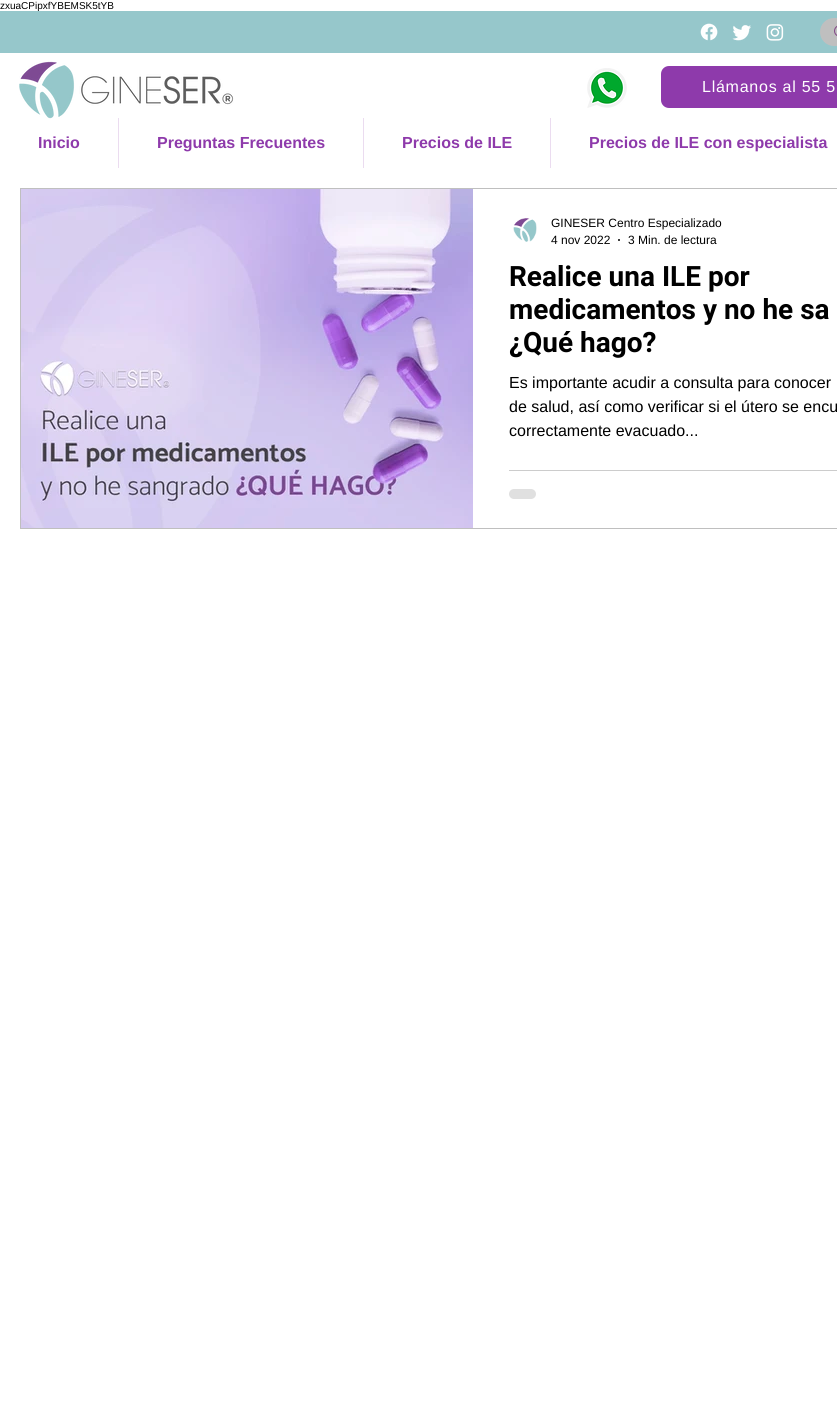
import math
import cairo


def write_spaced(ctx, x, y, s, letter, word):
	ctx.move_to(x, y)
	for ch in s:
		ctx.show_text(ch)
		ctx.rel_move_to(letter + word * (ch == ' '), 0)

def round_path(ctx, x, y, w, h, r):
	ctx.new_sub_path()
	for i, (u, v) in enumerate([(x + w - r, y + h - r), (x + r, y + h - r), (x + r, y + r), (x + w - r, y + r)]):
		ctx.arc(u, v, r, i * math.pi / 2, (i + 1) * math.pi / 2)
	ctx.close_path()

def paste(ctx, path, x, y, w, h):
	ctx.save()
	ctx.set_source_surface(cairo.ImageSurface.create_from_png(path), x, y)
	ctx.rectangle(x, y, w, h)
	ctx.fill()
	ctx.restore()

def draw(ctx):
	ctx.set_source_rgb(1, 1, 1)
	ctx.paint()
	ctx.select_font_face('Liberation Sans')
	ctx.set_font_size(10)
	ctx.set_source_rgb(0, 0, 0)
	ctx.move_to(0, 9)
	ctx.show_text('zxuaCPipxfYBEMSK5tYB')
	ctx.set_source_rgb(0.588, 0.78, 0.796)
	ctx.rectangle(0, 11, 837, 42)
	ctx.fill()
	paste(ctx, 'media/1.png', 700, 23, 18, 18)
	paste(ctx, 'media/2.png', 732, 25, 19, 16)
	paste(ctx, 'media/3.png', 766, 24, 18, 17)
	ctx.set_source_rgb(0.749, 0.749, 0.749)
	round_path(ctx, 820, 18, 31, 28, 14)
	ctx.fill()
	paste(ctx, 'media/4.png', 834, 25, 3, 11)
	ctx.set_source_rgb(0.918, 0.863, 0.941)
	ctx.rectangle(118, 118, 1, 50)
	ctx.fill()
	paste(ctx, 'media/5.png', 19, 61, 215, 58)
	paste(ctx, 'media/6.png', 587, 68, 40, 40)
	ctx.set_source_rgb(0.557, 0.227, 0.671)
	round_path(ctx, 661, 66, 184, 42, 8)
	ctx.fill()
	ctx.set_font_size(16)
	ctx.set_source_rgb(1, 1, 1)
	write_spaced(ctx, 702, 92, 'Llámanos al 55 5', 0.75, 0)
	ctx.select_font_face('Liberation Sans', cairo.FONT_SLANT_NORMAL, cairo.FONT_WEIGHT_BOLD)
	ctx.set_source_rgb(0.557, 0.227, 0.671)
	ctx.move_to(38, 148)
	ctx.show_text('Inicio')
	ctx.move_to(157, 148)
	ctx.show_text('Preguntas Frecuentes')
	ctx.set_source_rgb(0.918, 0.863, 0.941)
	ctx.rectangle(363, 118, 1, 50)
	ctx.fill()
	ctx.set_source_rgb(0.557, 0.227, 0.671)
	ctx.move_to(402, 148)
	ctx.show_text('Precios de ILE')
	ctx.set_source_rgb(0.918, 0.863, 0.941)
	ctx.rectangle(550, 118, 1, 50)
	ctx.fill()
	ctx.set_source_rgb(0.557, 0.227, 0.671)
	ctx.move_to(589, 148)
	ctx.show_text('Precios de ILE con especialista')
	ctx.rectangle(20.5, 188.5, 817, 340)
	ctx.set_source_rgb(0.749, 0.749, 0.749)
	ctx.set_line_width(1)
	ctx.stroke()
	paste(ctx, 'media/7.png', 21, 189, 452, 339)
	paste(ctx, 'media/8.png', 513, 218, 24, 24)
	ctx.select_font_face('Liberation Sans')
	ctx.set_font_size(12)
	ctx.set_source_rgb(0, 0, 0)
	ctx.move_to(551, 227)
	ctx.show_text('GINESER Centro Especializado')
	ctx.move_to(551, 244)
	ctx.show_text('4 nov 2022')
	ctx.new_path()
	ctx.arc(619, 240, 1, 0, 2 * math.pi)
	ctx.fill()
	ctx.move_to(628, 244)
	ctx.show_text('3 Min. de lectura')
	ctx.select_font_face('Roboto', cairo.FONT_SLANT_NORMAL, cairo.FONT_WEIGHT_BOLD)
	ctx.set_font_size(28)
	for x, y, s in [
		(509, 286, 'Realice una ILE por'),
		(509, 319, 'medicamentos y no he sa'),
		(509, 352, '¿Qué hago?'),
	]:
		ctx.move_to(x, y)
		ctx.show_text(s)
	ctx.select_font_face('Liberation Sans')
	ctx.set_font_size(16)
	for x, y, s in [
		(509, 388, 'Es importante acudir a consulta para conocer'),
		(509, 412, 'de salud, así como verificar si el útero se encu'),
		(509, 436, 'correctamente evacuado...'),
	]:
		ctx.move_to(x, y)
		ctx.show_text(s)
	ctx.set_source_rgb(0.8, 0.8, 0.8)
	ctx.rectangle(509, 470, 328, 1)
	ctx.fill()
	ctx.set_source_rgb(0.878, 0.878, 0.878)
	round_path(ctx, 509, 489, 27, 10, 5)
	ctx.fill()


surface = cairo.ImageSurface(cairo.FORMAT_RGB24, 837, 1419)
ctx = cairo.Context(surface)
options = cairo.FontOptions()
options.set_hint_metrics(cairo.HINT_METRICS_OFF)
options.set_hint_style(cairo.HINT_STYLE_NONE)
ctx.set_font_options(options)
ctx.set_miter_limit(4)
draw(ctx)
surface.write_to_png('image.png')
